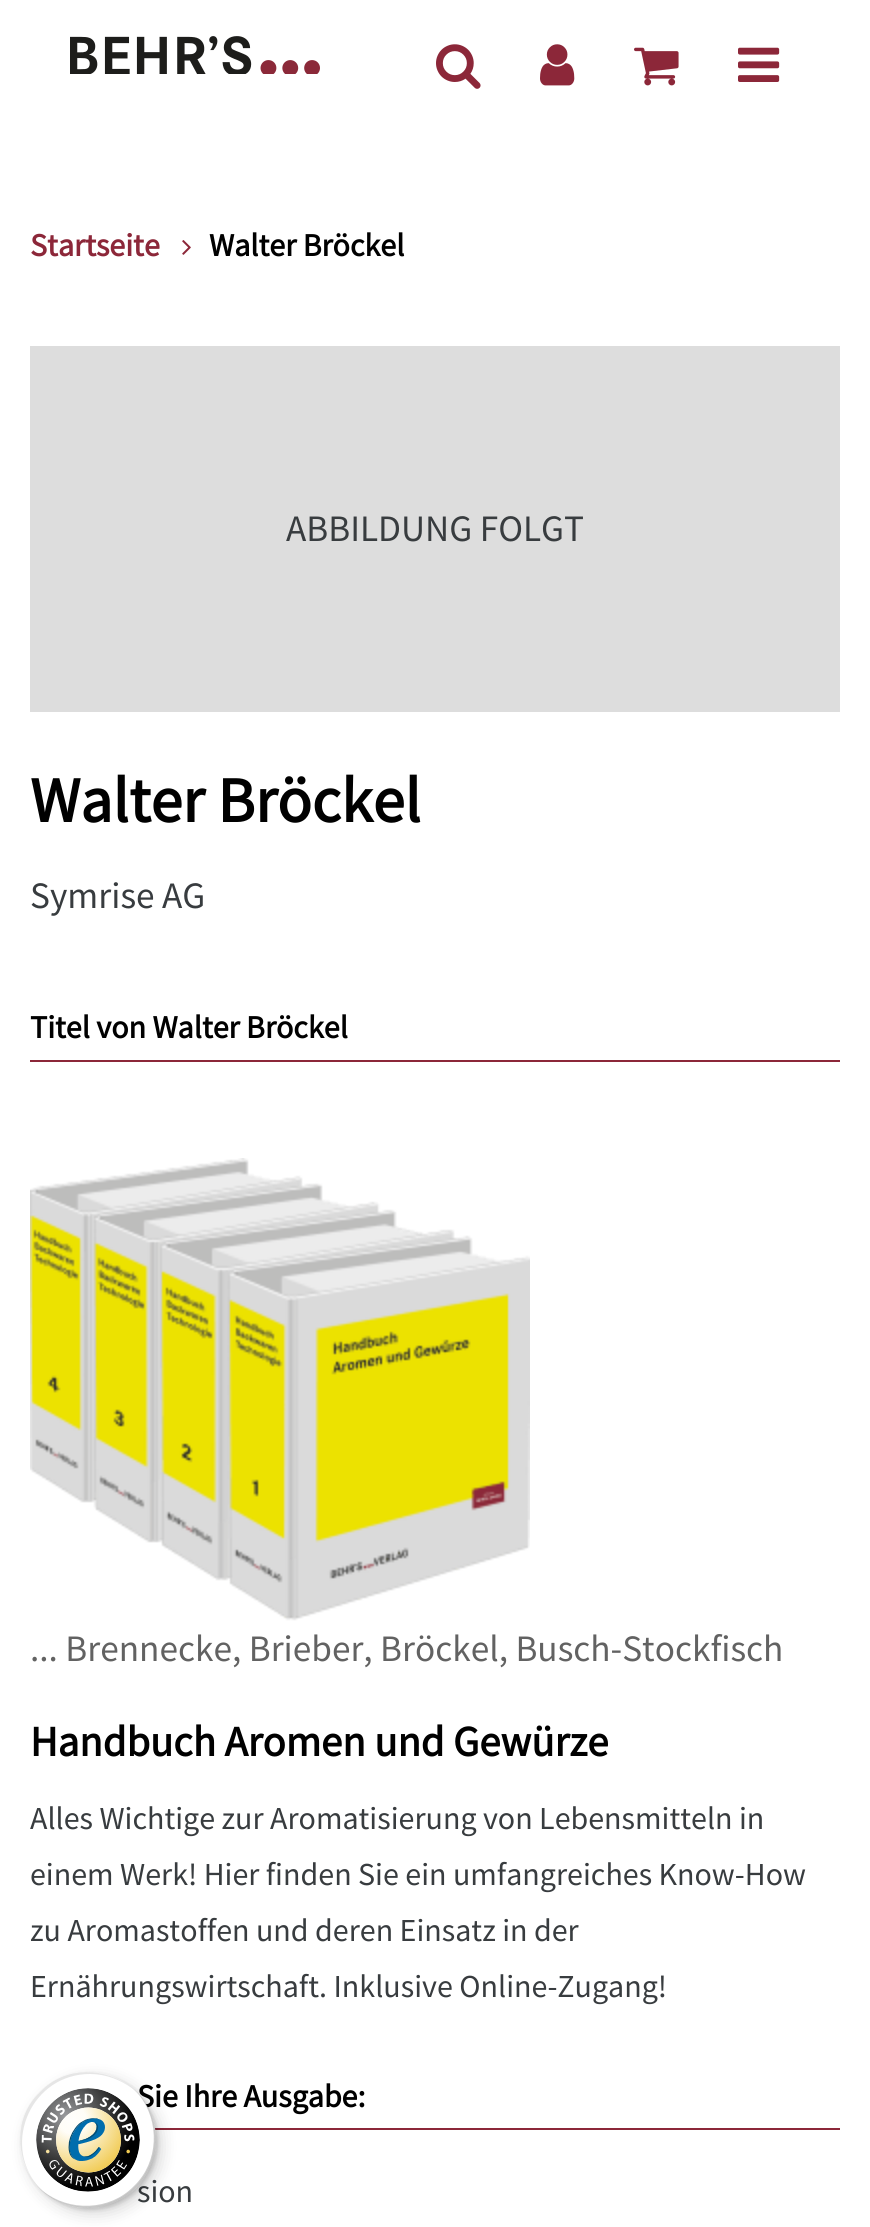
import math
import cairo


def round_path(ctx, x, y, w, h, r):
	ctx.new_sub_path()
	for i, (u, v) in enumerate([(x + w - r, y + h - r), (x + r, y + h - r), (x + r, y + r), (x + w - r, y + r)]):
		ctx.arc(u, v, r, i * math.pi / 2, (i + 1) * math.pi / 2)
	ctx.close_path()

def blur_box(ctx, x, y, w, h, r, blur, alpha):
	ctx.push_group_with_content(cairo.CONTENT_ALPHA)
	ctx.set_operator(cairo.OPERATOR_SOURCE)
	for i in range(15, -16, -2):
		e = blur * i / 6
		if min(w, h) + 2 * e > 0:
			ctx.set_source_rgba(0, 0, 0, alpha * math.erfc((i - 1) / 8.5) / 2)
			round_path(ctx, x - e, y - e, w + 2 * e, h + 2 * e, max(0, min(r + e + blur * .6, min(w, h) / 2 + e)))
			ctx.fill()
	ctx.mask(ctx.pop_group())

def paste(ctx, path, x, y, w, h):
	ctx.save()
	ctx.set_source_surface(cairo.ImageSurface.create_from_png(path), x, y)
	ctx.rectangle(x, y, w, h)
	ctx.fill()
	ctx.restore()

def draw(ctx):
	ctx.set_source_rgb(1, 1, 1)
	ctx.paint()
	paste(ctx, 'media/1.png', 70, 36, 250, 38)
	paste(ctx, 'media/2.png', 436, 44, 45, 45)
	paste(ctx, 'media/3.png', 540, 44, 35, 42)
	paste(ctx, 'media/4.png', 634, 47, 45, 39)
	paste(ctx, 'media/5.png', 738, 47, 42, 35)
	ctx.select_font_face('Source Sans Pro', cairo.FONT_SLANT_NORMAL, cairo.FONT_WEIGHT_BOLD)
	ctx.set_font_size(32)
	ctx.set_source_rgb(0.549, 0.153, 0.224)
	ctx.move_to(30, 256)
	ctx.show_text('Startseite')
	paste(ctx, 'media/6.png', 182, 240, 9, 15)
	ctx.set_source_rgb(0, 0, 0)
	ctx.move_to(209, 256)
	ctx.show_text('Walter Bröckel')
	ctx.set_source_rgb(0.867, 0.867, 0.867)
	ctx.rectangle(30, 346, 810, 366)
	ctx.fill()
	ctx.select_font_face('Source Sans Pro')
	ctx.set_font_size(37.3)
	ctx.set_source_rgb(0.22, 0.235, 0.247)
	ctx.move_to(286, 541)
	ctx.show_text('ABBILDUNG FOLGT')
	ctx.select_font_face('Source Sans Pro', cairo.FONT_SLANT_NORMAL, cairo.FONT_WEIGHT_BOLD)
	ctx.set_font_size(64)
	ctx.set_source_rgb(0, 0, 0)
	ctx.move_to(30, 822)
	ctx.show_text('Walter Bröckel')
	ctx.select_font_face('Source Sans Pro')
	ctx.set_font_size(37.3)
	ctx.set_source_rgb(0.22, 0.235, 0.247)
	ctx.move_to(30, 908)
	ctx.show_text('Symrise AG')
	ctx.set_source_rgb(0.549, 0.153, 0.224)
	ctx.rectangle(30, 1060, 810, 2)
	ctx.fill()
	ctx.select_font_face('Source Sans Pro', cairo.FONT_SLANT_NORMAL, cairo.FONT_WEIGHT_BOLD)
	ctx.set_font_size(32)
	ctx.set_source_rgb(0, 0, 0)
	ctx.move_to(30, 1038)
	ctx.show_text('Titel von Walter Bröckel')
	paste(ctx, 'media/7.png', 30, 1158, 500, 463)
	ctx.select_font_face('Source Sans Pro')
	ctx.set_font_size(37.3)
	ctx.set_source_rgb(0.384, 0.384, 0.384)
	ctx.move_to(30, 1661)
	ctx.show_text('... Brennecke, Brieber, Bröckel, Busch-Stockfisch')
	ctx.select_font_face('Source Sans Pro', cairo.FONT_SLANT_NORMAL, cairo.FONT_WEIGHT_BOLD)
	ctx.set_font_size(42.7)
	ctx.set_source_rgb(0, 0, 0)
	ctx.move_to(30, 1756)
	ctx.show_text('Handbuch Aromen und Gewürze')
	ctx.select_font_face('Source Sans Pro')
	ctx.set_font_size(32)
	ctx.set_source_rgb(0.22, 0.235, 0.247)
	for x, y, s in [
		(30, 1829, 'Alles Wichtige zur Aromatisierung von Lebensmitteln in'),
		(30, 1885, 'einem Werk! Hier finden Sie ein umfangreiches Know-How'),
		(30, 1941, 'zu Aromastoffen und deren Einsatz in der'),
		(30, 1997, 'Ernährungswirtschaft. Inklusive Online-Zugang!'),
	]:
		ctx.move_to(x, y)
		ctx.show_text(s)
	ctx.set_source_rgb(0.549, 0.153, 0.224)
	ctx.rectangle(154, 2128, 686, 2)
	ctx.fill()
	ctx.select_font_face('Source Sans Pro', cairo.FONT_SLANT_NORMAL, cairo.FONT_WEIGHT_BOLD)
	ctx.set_source_rgb(0, 0, 0)
	ctx.move_to(137, 2107)
	ctx.show_text('Sie Ihre Ausgabe:')
	ctx.select_font_face('Source Sans Pro')
	ctx.set_source_rgb(0.22, 0.235, 0.247)
	ctx.move_to(137, 2202)
	ctx.show_text('sion')
	ctx.set_source_rgb(0, 0, 0)
	blur_box(ctx, 26, 2078, 136, 136, 68, 8, 0.15)
	blur_box(ctx, 22, 2074, 136, 136, 68, 2, 0.15)
	ctx.set_source_rgb(1, 1, 1)
	ctx.arc(88, 2140, 68, 0, 2 * math.pi)
	ctx.fill()
	ctx.set_source_rgba(0, 0, 0, 0.1)
	ctx.new_path()
	ctx.move_to(90, 2074)
	ctx.curve_to(106, 2074, 121, 2080, 133, 2089)
	ctx.curve_to(106, 2066, 65, 2066, 40, 2092)
	ctx.curve_to(14, 2117, 14, 2158, 37, 2185)
	ctx.curve_to(2, 2142, 32, 2074, 90, 2074)
	ctx.close_path()
	ctx.fill()
	ctx.set_source_rgba(0, 0, 0, 0.2)
	ctx.new_path()
	ctx.move_to(43, 2191)
	ctx.curve_to(70, 2214, 111, 2214, 136, 2188)
	ctx.curve_to(162, 2163, 162, 2122, 139, 2095)
	ctx.curve_to(160, 2121, 159, 2162, 134, 2186)
	ctx.curve_to(110, 2211, 69, 2212, 43, 2191)
	ctx.close_path()
	ctx.fill()
	ctx.set_source_rgba(0.196, 0.196, 0.196, 0.2)
	ctx.new_path()
	ctx.move_to(38, 2187)
	ctx.curve_to(64, 2214, 109, 2215, 136, 2188)
	ctx.curve_to(163, 2161, 162, 2116, 135, 2090)
	ctx.curve_to(161, 2117, 162, 2160, 135, 2187)
	ctx.curve_to(108, 2214, 65, 2213, 38, 2187)
	ctx.close_path()
	ctx.fill()
	ctx.set_source_rgba(1, 1, 1, 0.3)
	ctx.new_path()
	ctx.move_to(47, 2194)
	ctx.curve_to(74, 2214, 112, 2212, 136, 2188)
	ctx.curve_to(160, 2164, 162, 2126, 142, 2099)
	ctx.curve_to(161, 2126, 159, 2164, 135, 2187)
	ctx.curve_to(112, 2211, 74, 2213, 47, 2194)
	ctx.close_path()
	ctx.fill()
	paste(ctx, 'media/8.png', 36, 2088, 104, 104)


surface = cairo.ImageSurface(cairo.FORMAT_RGB24, 870, 2227)
ctx = cairo.Context(surface)
options = cairo.FontOptions()
options.set_hint_metrics(cairo.HINT_METRICS_OFF)
options.set_hint_style(cairo.HINT_STYLE_NONE)
ctx.set_font_options(options)
ctx.set_miter_limit(4)
draw(ctx)
surface.write_to_png('image.png')
